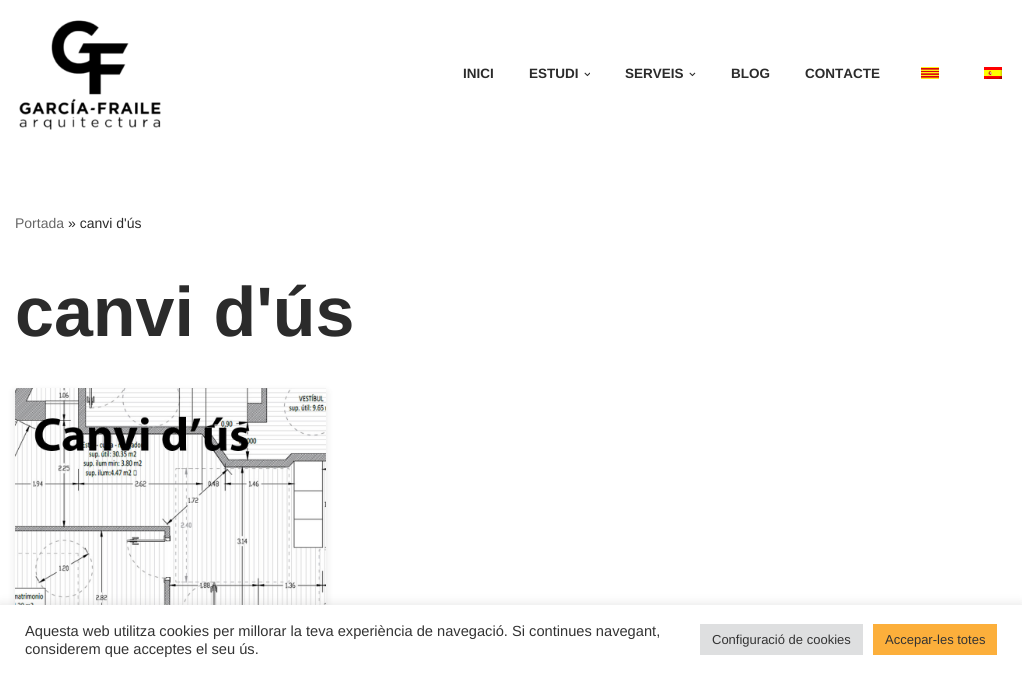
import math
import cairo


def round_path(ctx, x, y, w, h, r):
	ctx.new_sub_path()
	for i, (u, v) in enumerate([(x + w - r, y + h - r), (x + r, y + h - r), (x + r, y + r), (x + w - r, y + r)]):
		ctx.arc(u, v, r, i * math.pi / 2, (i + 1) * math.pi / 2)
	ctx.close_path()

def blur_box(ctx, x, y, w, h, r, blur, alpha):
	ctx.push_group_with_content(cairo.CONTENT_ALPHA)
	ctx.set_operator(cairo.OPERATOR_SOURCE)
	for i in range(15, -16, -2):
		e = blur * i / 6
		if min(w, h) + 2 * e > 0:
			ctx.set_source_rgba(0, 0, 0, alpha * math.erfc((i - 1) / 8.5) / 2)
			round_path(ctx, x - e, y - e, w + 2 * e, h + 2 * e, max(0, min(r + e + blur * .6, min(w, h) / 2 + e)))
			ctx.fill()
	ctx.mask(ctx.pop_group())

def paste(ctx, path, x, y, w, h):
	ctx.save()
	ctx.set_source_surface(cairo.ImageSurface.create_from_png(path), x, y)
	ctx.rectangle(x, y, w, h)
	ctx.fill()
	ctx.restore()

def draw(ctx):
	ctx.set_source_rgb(1, 1, 1)
	ctx.paint()
	paste(ctx, 'media/1.png', 19, 20, 142, 110)
	ctx.select_font_face('Liberation Sans', cairo.FONT_SLANT_NORMAL, cairo.FONT_WEIGHT_BOLD)
	ctx.set_font_size(13.5)
	ctx.set_source_rgb(0.169, 0.169, 0.169)
	ctx.move_to(463, 78)
	ctx.show_text('INICI')
	ctx.move_to(529, 78)
	ctx.show_text('ESTUDI')
	paste(ctx, 'media/2.png', 584, 72, 6, 5)
	ctx.move_to(625, 78)
	ctx.show_text('SERVEIS')
	paste(ctx, 'media/3.png', 689, 72, 7, 5)
	ctx.move_to(731, 78)
	ctx.show_text('BLOG')
	ctx.move_to(805, 78)
	ctx.show_text('CONTACTE')
	paste(ctx, 'media/4.png', 921, 67, 18, 12)
	paste(ctx, 'media/5.png', 984, 67, 18, 12)
	ctx.select_font_face('Liberation Sans')
	ctx.set_font_size(14)
	ctx.set_source_rgb(0.404, 0.404, 0.404)
	ctx.move_to(15, 228)
	ctx.show_text('Portada')
	ctx.set_source_rgb(0.169, 0.169, 0.169)
	ctx.move_to(68, 228)
	ctx.show_text('» canvi d\'ús')
	ctx.select_font_face('Liberation Sans', cairo.FONT_SLANT_NORMAL, cairo.FONT_WEIGHT_BOLD)
	ctx.set_font_size(70)
	ctx.move_to(15, 336)
	ctx.show_text('canvi d\'ús')
	ctx.set_source_rgb(0, 0, 0)
	blur_box(ctx, 15, 392, 311, 241, 0, 4, 0.1)
	paste(ctx, 'media/6.png', 15, 388, 311, 217)
	ctx.set_source_rgb(0.675, 0.671, 0.671)
	blur_box(ctx, 0, 604, 1022, 69, 0, 5, 0.3)
	ctx.set_source_rgb(1, 1, 1)
	ctx.rectangle(0, 605, 1022, 69)
	ctx.fill()
	ctx.select_font_face('Liberation Sans')
	ctx.set_font_size(14.65)
	ctx.set_source_rgb(0.2, 0.2, 0.2)
	ctx.move_to(25, 636)
	ctx.show_text('Aquesta web utilitza cookies per millorar la teva experiència de navegació. Si continues navegant,')
	ctx.move_to(25, 654)
	ctx.show_text('considerem que acceptes el seu ús.')
	ctx.set_source_rgb(0.871, 0.875, 0.878)
	ctx.rectangle(700, 624, 163, 31)
	ctx.fill()
	ctx.set_font_size(13)
	ctx.set_source_rgb(0.2, 0.2, 0.2)
	ctx.move_to(712, 644)
	ctx.show_text('Configuració de cookies')
	ctx.set_source_rgb(0.988, 0.686, 0.231)
	ctx.rectangle(873, 624, 124, 31)
	ctx.fill()
	ctx.set_source_rgb(0.2, 0.2, 0.2)
	ctx.move_to(885, 644)
	ctx.show_text('Accepar-les totes')


surface = cairo.ImageSurface(cairo.FORMAT_RGB24, 1022, 674)
ctx = cairo.Context(surface)
options = cairo.FontOptions()
options.set_hint_metrics(cairo.HINT_METRICS_OFF)
options.set_hint_style(cairo.HINT_STYLE_NONE)
ctx.set_font_options(options)
ctx.set_miter_limit(4)
draw(ctx)
surface.write_to_png('image.png')
